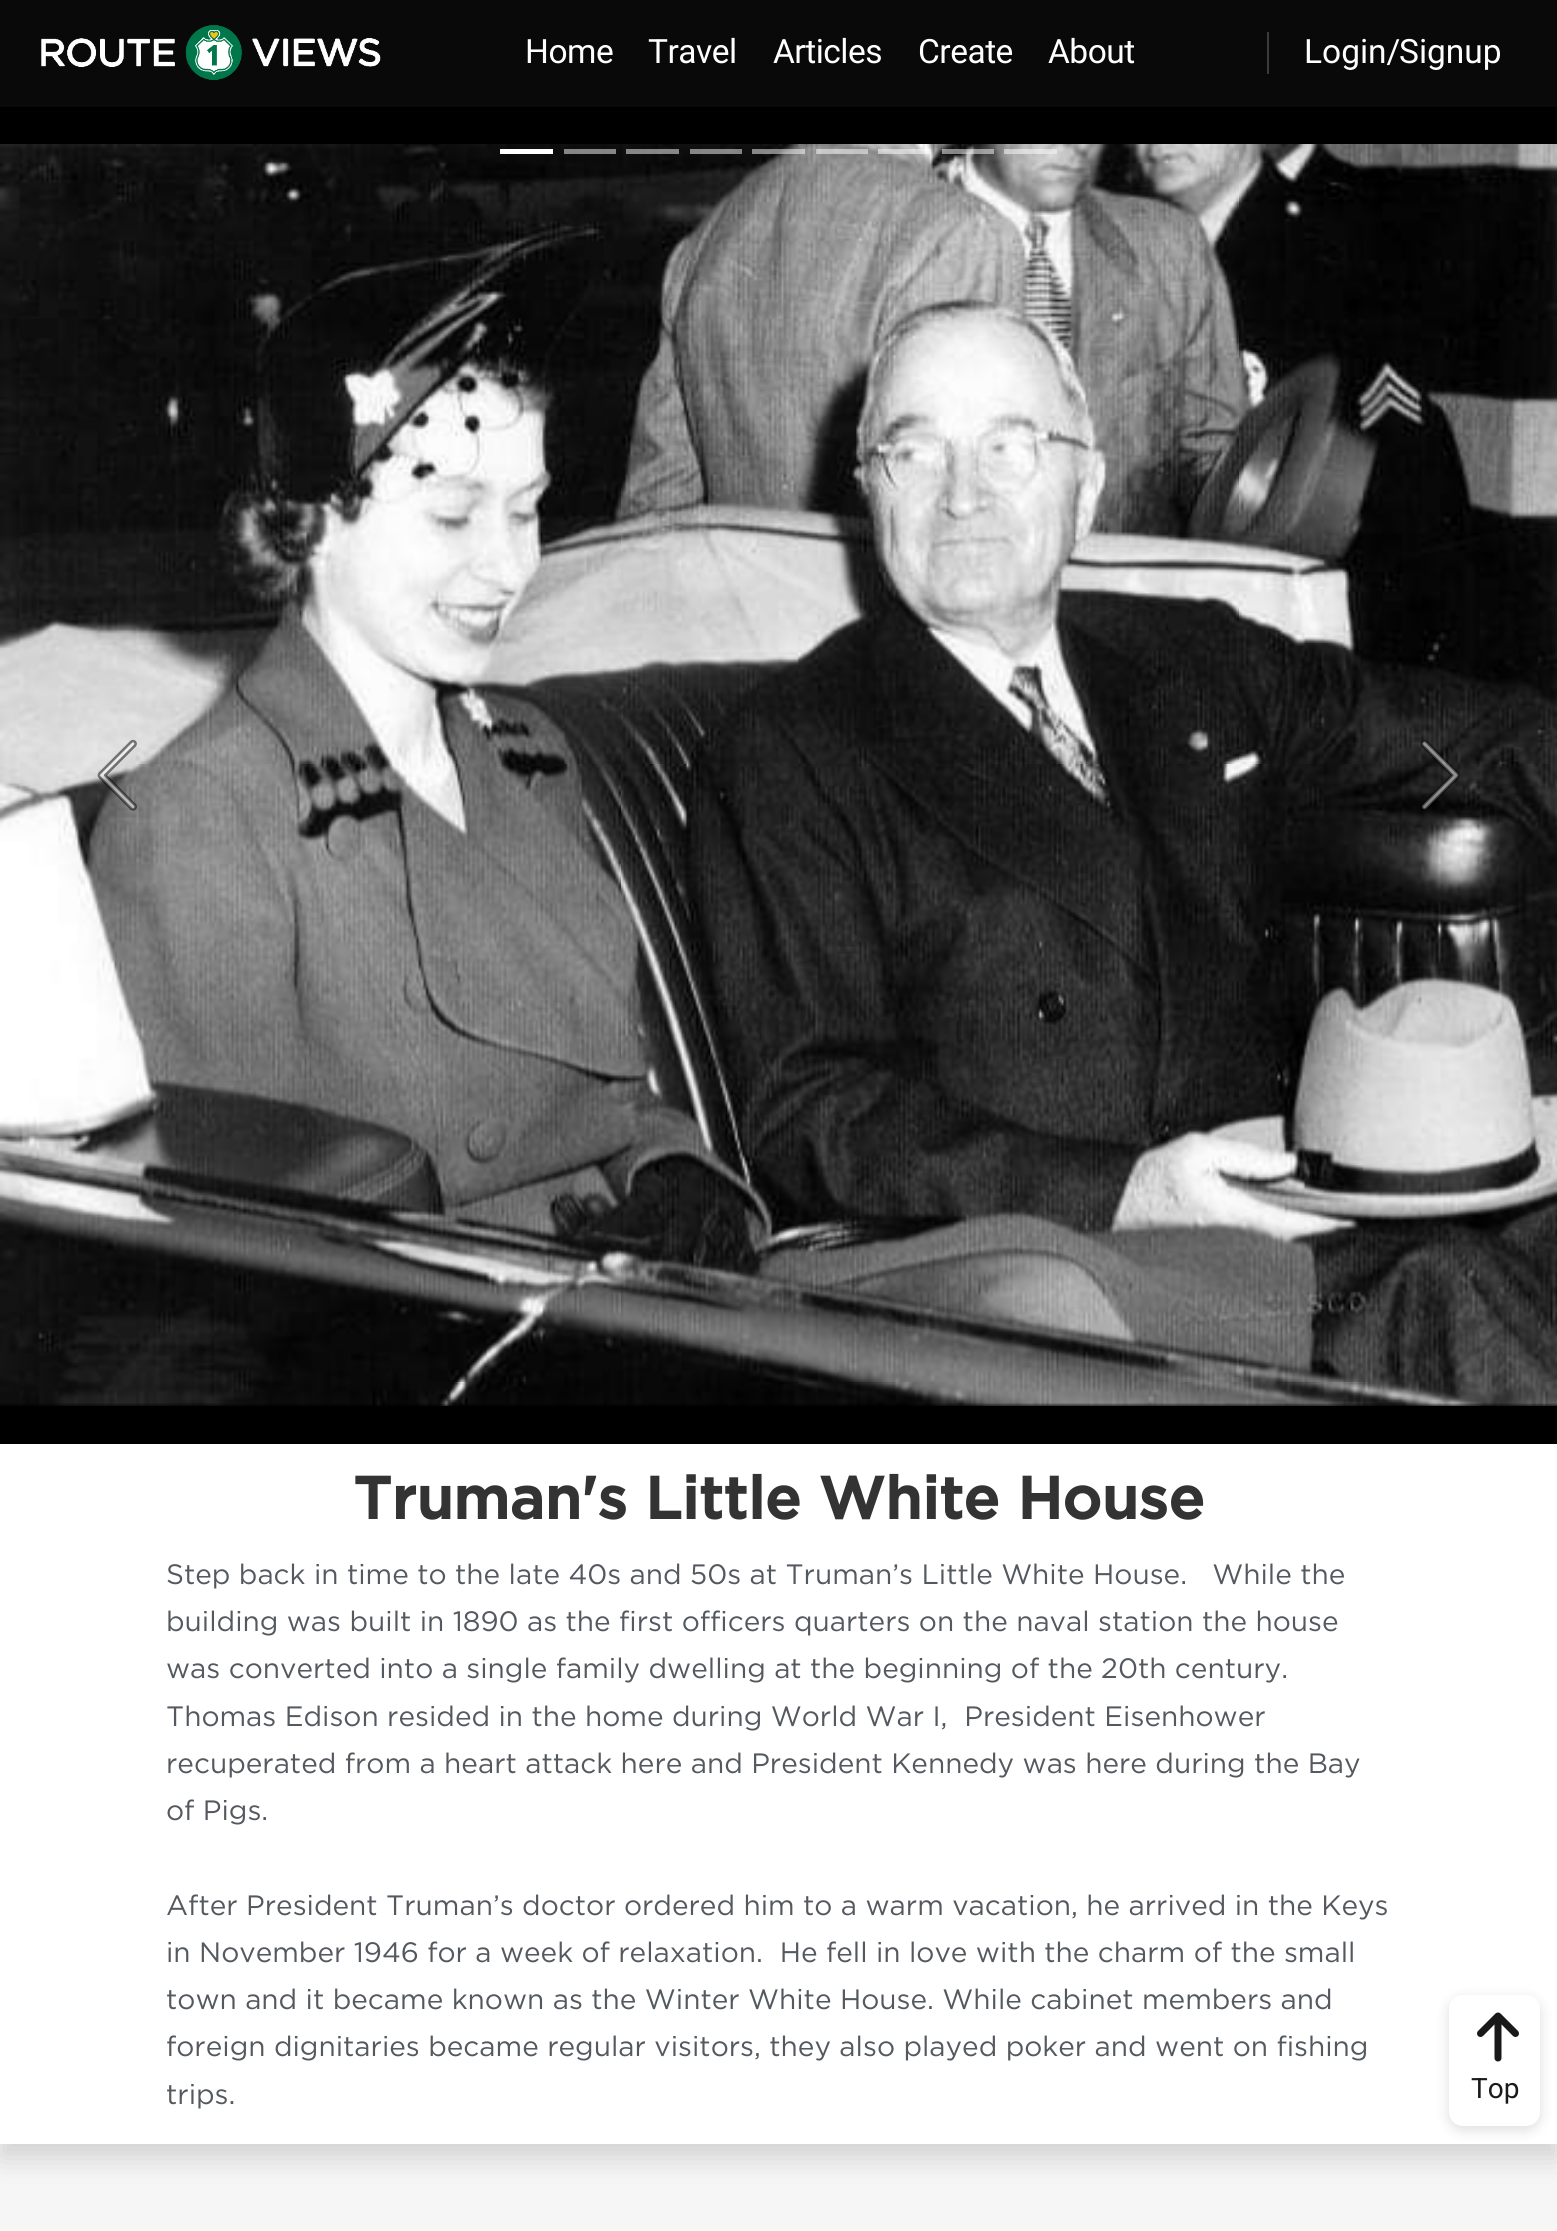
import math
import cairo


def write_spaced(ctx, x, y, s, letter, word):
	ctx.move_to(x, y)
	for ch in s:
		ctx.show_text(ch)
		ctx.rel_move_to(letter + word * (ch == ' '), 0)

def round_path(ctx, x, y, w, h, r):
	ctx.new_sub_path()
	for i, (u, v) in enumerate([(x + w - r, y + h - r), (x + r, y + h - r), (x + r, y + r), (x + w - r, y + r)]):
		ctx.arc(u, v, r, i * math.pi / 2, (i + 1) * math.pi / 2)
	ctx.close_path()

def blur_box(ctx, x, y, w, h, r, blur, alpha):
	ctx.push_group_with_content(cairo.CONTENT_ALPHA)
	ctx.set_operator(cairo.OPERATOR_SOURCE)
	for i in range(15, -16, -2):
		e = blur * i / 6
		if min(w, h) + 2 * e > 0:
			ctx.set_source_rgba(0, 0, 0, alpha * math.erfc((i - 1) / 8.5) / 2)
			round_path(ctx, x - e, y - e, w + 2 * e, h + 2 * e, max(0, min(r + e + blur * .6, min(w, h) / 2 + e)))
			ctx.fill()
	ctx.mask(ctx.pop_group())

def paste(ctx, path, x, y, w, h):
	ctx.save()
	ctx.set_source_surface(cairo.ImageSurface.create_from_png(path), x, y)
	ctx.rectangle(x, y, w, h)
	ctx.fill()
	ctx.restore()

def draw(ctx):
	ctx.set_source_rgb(0.961, 0.961, 0.961)
	ctx.paint()
	ctx.set_source_rgb(0, 0, 0)
	blur_box(ctx, 0, 119, 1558, 2039, 0, 14, 0.15)
	ctx.set_source_rgb(0, 0, 0)
	ctx.rectangle(0, 105, 1557, 1339)
	ctx.fill()
	ctx.set_source_rgb(0.255, 0.278, 0.424)
	blur_box(ctx, 0, 0, 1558, 105, 0, 1, 0.15)
	ctx.set_source_rgba(0.545, 0.553, 0.616, 0.05)
	ctx.new_path()
	ctx.move_to(0, 105)
	ctx.line_to(0, 107)
	ctx.line_to(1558, 107)
	ctx.line_to(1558, 2)
	ctx.line_to(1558, 105)
	ctx.close_path()
	ctx.fill()
	ctx.set_source_rgb(0.039, 0.039, 0.039)
	ctx.rectangle(0, 0, 1557, 105)
	ctx.fill()
	paste(ctx, 'media/1.png', 41, 25, 340, 55)
	ctx.select_font_face('Roboto')
	ctx.set_font_size(33.5)
	ctx.set_source_rgb(1, 1, 1)
	for x, y, s in [
		(525, 63, 'Home'),
		(648, 63, 'Travel'),
		(773, 63, 'Articles'),
		(918, 63, 'Create'),
		(1048, 63, 'About'),
	]:
		write_spaced(ctx, x, y, s, -0.5, 0)
	ctx.set_source_rgb(0.231, 0.231, 0.231)
	ctx.rectangle(1267, 32, 2, 42)
	ctx.fill()
	ctx.set_source_rgb(1, 1, 1)
	ctx.move_to(1304, 63)
	ctx.show_text('Login/')
	ctx.move_to(1399, 63)
	ctx.show_text('Signup')
	ctx.rectangle(0, 1444, 1557, 700)
	ctx.fill()
	paste(ctx, 'media/2.png', 0, 144, 1557, 1262)
	ctx.new_path()
	ctx.move_to(509, 149)
	ctx.line_to(553, 149)
	ctx.line_to(553, 154)
	ctx.line_to(500, 154)
	ctx.line_to(500, 149)
	ctx.close_path()
	ctx.fill()
	ctx.set_source_rgba(1, 1, 1, 0.5)
	ctx.new_path()
	ctx.move_to(572, 149)
	ctx.line_to(616, 149)
	ctx.line_to(616, 154)
	ctx.line_to(564, 154)
	ctx.line_to(564, 149)
	ctx.close_path()
	ctx.fill()
	ctx.new_path()
	ctx.move_to(635, 149)
	ctx.line_to(679, 149)
	ctx.line_to(679, 154)
	ctx.line_to(626, 154)
	ctx.line_to(626, 149)
	ctx.close_path()
	ctx.fill()
	ctx.new_path()
	ctx.move_to(698, 149)
	ctx.line_to(742, 149)
	ctx.line_to(742, 154)
	ctx.line_to(690, 154)
	ctx.line_to(690, 149)
	ctx.close_path()
	ctx.fill()
	ctx.new_path()
	ctx.move_to(761, 149)
	ctx.line_to(805, 149)
	ctx.line_to(805, 154)
	ctx.line_to(752, 154)
	ctx.line_to(752, 149)
	ctx.close_path()
	ctx.fill()
	ctx.new_path()
	ctx.move_to(824, 149)
	ctx.line_to(868, 149)
	ctx.line_to(868, 154)
	ctx.line_to(816, 154)
	ctx.line_to(816, 149)
	ctx.close_path()
	ctx.fill()
	ctx.new_path()
	ctx.move_to(887, 149)
	ctx.line_to(931, 149)
	ctx.line_to(931, 154)
	ctx.line_to(878, 154)
	ctx.line_to(878, 149)
	ctx.close_path()
	ctx.fill()
	ctx.new_path()
	ctx.move_to(950, 149)
	ctx.line_to(994, 149)
	ctx.line_to(994, 154)
	ctx.line_to(942, 154)
	ctx.line_to(942, 149)
	ctx.close_path()
	ctx.fill()
	ctx.new_path()
	ctx.move_to(1013, 149)
	ctx.line_to(1057, 149)
	ctx.line_to(1057, 154)
	ctx.line_to(1004, 154)
	ctx.line_to(1004, 149)
	ctx.close_path()
	ctx.fill()
	paste(ctx, 'media/3.png', 97, 739, 40, 72)
	paste(ctx, 'media/4.png', 1420, 740, 40, 70)
	ctx.select_font_face('Gotham', cairo.FONT_SLANT_NORMAL, cairo.FONT_WEIGHT_BOLD)
	ctx.set_font_size(59.5)
	ctx.set_source_rgb(0.2, 0.2, 0.2)
	ctx.move_to(353, 1519)
	ctx.show_text('Truman\'s Little White House')
	ctx.select_font_face('Gotham')
	ctx.set_font_size(28)
	ctx.set_source_rgb(0.329, 0.349, 0.373)
	for x, y, s in [
		(166, 1584, 'Step back in time to the late 40s and 50s at Truman’s Little White House.   While the'),
		(166, 1631, 'building was built in 1890 as the first officers quarters on the naval station the house'),
		(166, 1678, 'was converted into a single family dwelling at the beginning of the 20th century.'),
		(166, 1726, 'Thomas Edison resided in the home during World War I,  President Eisenhower'),
		(166, 1773, 'recuperated from a heart attack here and President Kennedy was here during the Bay'),
		(166, 1820, 'of Pigs.'),
		(166, 1915, 'After President Truman’s doctor ordered him to a warm vacation, he arrived in the Keys'),
		(166, 1962, 'in November 1946 for a week of relaxation.  He fell in love with the charm of the small'),
		(166, 2009, 'town and it became known as the Winter White House. While cabinet members and'),
		(166, 2056, 'foreign dignitaries became regular visitors, they also played poker and went on fishing'),
		(166, 2104, 'trips.'),
	]:
		ctx.move_to(x, y)
		ctx.show_text(s)
	ctx.set_source_rgb(0.102, 0.102, 0.102)
	blur_box(ctx, 1449, 1999, 91, 131, 14, 7, 0.15)
	ctx.set_source_rgb(1, 1, 1)
	round_path(ctx, 1449, 1995, 91, 131, 14)
	ctx.fill()
	paste(ctx, 'media/5.png', 1477, 2012, 42, 50)
	ctx.select_font_face('Roboto')
	ctx.set_source_rgb(0.102, 0.102, 0.102)
	ctx.move_to(1471, 2098)
	ctx.show_text('Top')


surface = cairo.ImageSurface(cairo.FORMAT_RGB24, 1557, 2231)
ctx = cairo.Context(surface)
options = cairo.FontOptions()
options.set_hint_metrics(cairo.HINT_METRICS_OFF)
options.set_hint_style(cairo.HINT_STYLE_NONE)
ctx.set_font_options(options)
ctx.set_miter_limit(4)
draw(ctx)
surface.write_to_png('image.png')
